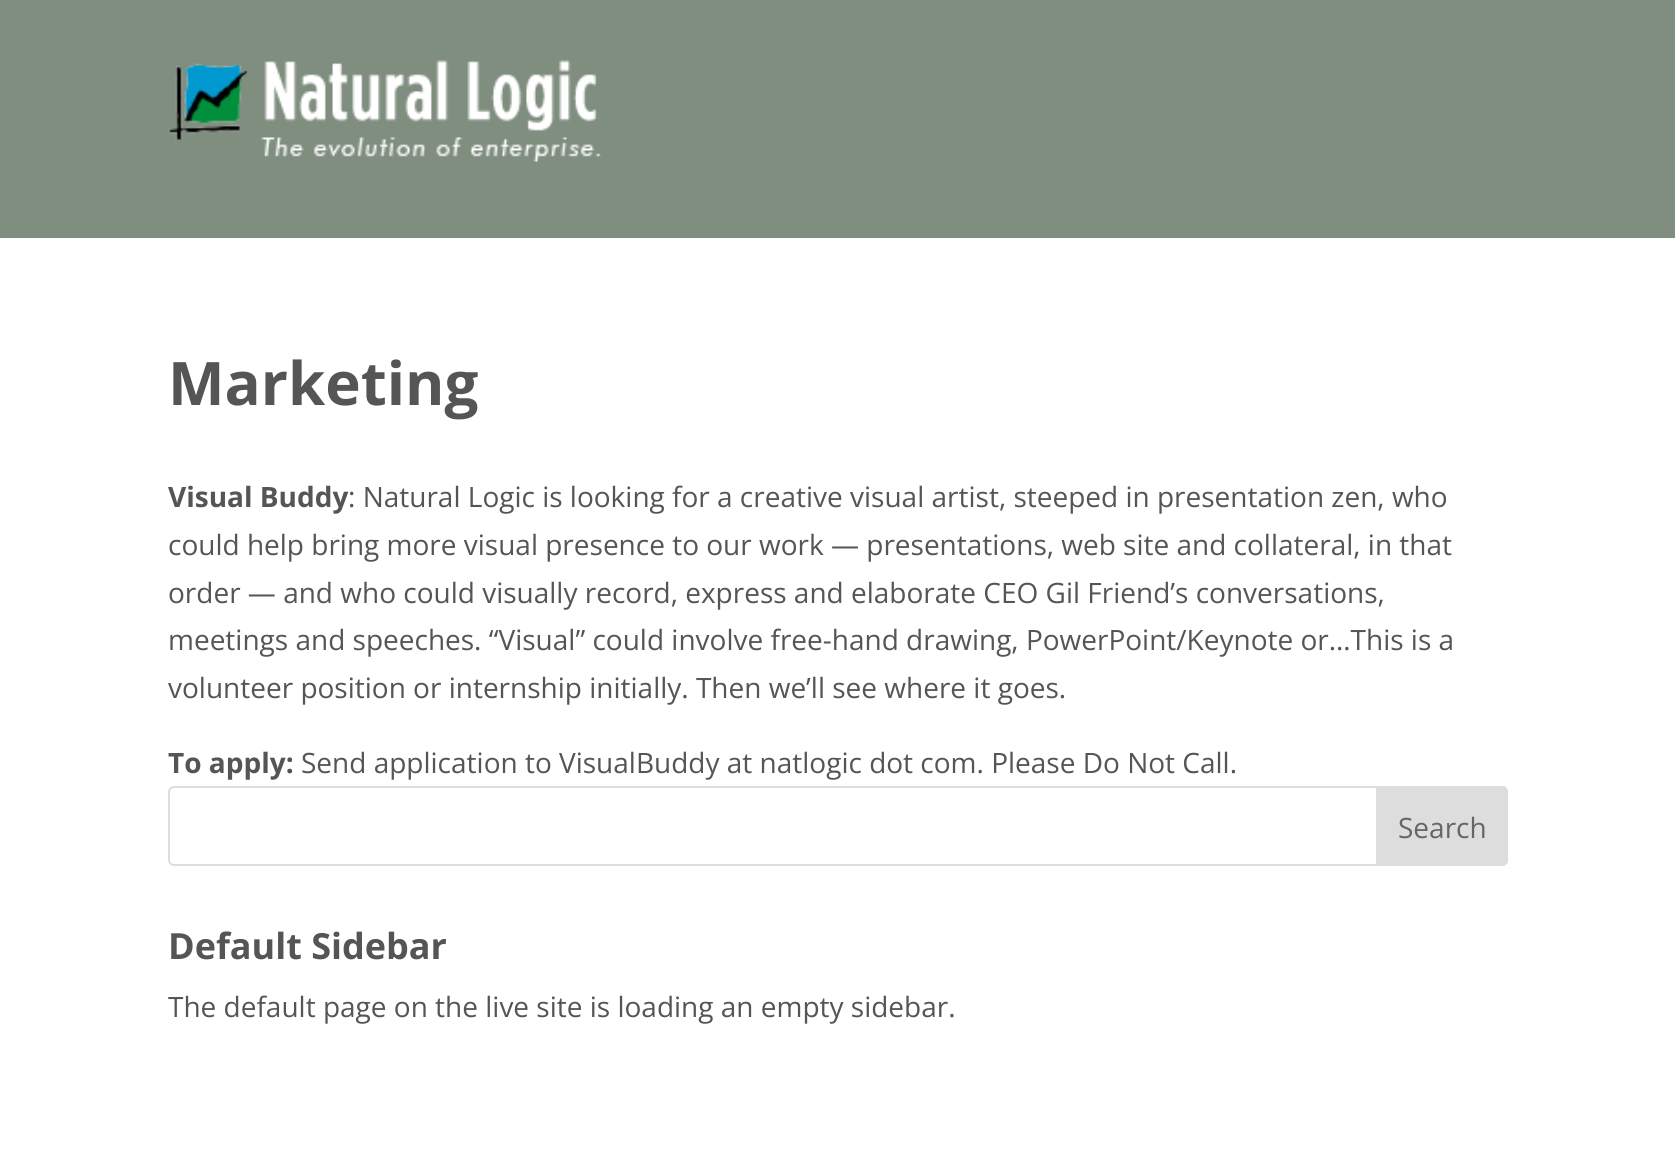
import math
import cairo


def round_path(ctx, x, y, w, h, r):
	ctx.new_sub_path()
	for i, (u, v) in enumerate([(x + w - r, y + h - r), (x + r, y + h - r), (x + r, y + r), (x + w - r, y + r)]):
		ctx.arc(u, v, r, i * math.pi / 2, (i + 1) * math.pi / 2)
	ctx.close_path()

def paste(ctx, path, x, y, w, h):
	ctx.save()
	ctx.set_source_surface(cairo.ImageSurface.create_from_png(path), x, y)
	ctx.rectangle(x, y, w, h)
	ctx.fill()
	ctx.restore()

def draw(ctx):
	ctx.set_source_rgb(1, 1, 1)
	ctx.paint()
	ctx.set_source_rgb(0.502, 0.557, 0.502)
	ctx.rectangle(0, 0, 1675, 238)
	ctx.fill()
	paste(ctx, 'media/1.png', 168, 60, 434, 102)
	ctx.select_font_face('Open Sans', cairo.FONT_SLANT_NORMAL, cairo.FONT_WEIGHT_BOLD)
	ctx.set_font_size(60)
	ctx.set_source_rgb(0.333, 0.333, 0.333)
	ctx.move_to(168, 405)
	ctx.show_text('Marketing')
	ctx.set_font_size(28)
	ctx.move_to(168, 507)
	ctx.show_text('Visual Buddy')
	ctx.select_font_face('Open Sans')
	for x, y, s in [
		(348, 507, ': Natural Logic is looking for a creative visual artist, steeped in presentation zen, who'),
		(168, 555, 'could help bring more visual presence to our work — presentations, web site and collateral, in that'),
		(168, 603, 'order — and who could visually record, express and elaborate CEO Gil Friend’s conversations,'),
		(168, 650, 'meetings and speeches. “Visual” could involve free-hand drawing, PowerPoint/Keynote or…This is a'),
		(168, 698, 'volunteer position or internship initially. Then we’ll see where it goes.'),
	]:
		ctx.move_to(x, y)
		ctx.show_text(s)
	ctx.select_font_face('Open Sans', cairo.FONT_SLANT_NORMAL, cairo.FONT_WEIGHT_BOLD)
	ctx.move_to(168, 773)
	ctx.show_text('To apply:')
	ctx.select_font_face('Open Sans')
	ctx.move_to(301, 773)
	ctx.show_text('Send application to VisualBuddy at natlogic dot com. Please Do Not Call.')
	round_path(ctx, 169, 787, 1338, 78, 5)
	ctx.set_source_rgb(0.867, 0.867, 0.867)
	ctx.stroke()
	ctx.new_path()
	ctx.move_to(1377, 787)
	ctx.line_to(1502, 787)
	ctx.curve_to(1505, 787, 1507, 789, 1507, 792)
	ctx.line_to(1507, 860)
	ctx.curve_to(1507, 863, 1505, 865, 1502, 865)
	ctx.line_to(1377, 865)
	ctx.close_path()
	ctx.fill_preserve()
	ctx.stroke()
	ctx.set_source_rgb(0.4, 0.4, 0.4)
	ctx.move_to(1398, 838)
	ctx.show_text('Search')
	ctx.select_font_face('Open Sans', cairo.FONT_SLANT_NORMAL, cairo.FONT_WEIGHT_BOLD)
	ctx.set_font_size(36)
	ctx.set_source_rgb(0.333, 0.333, 0.333)
	ctx.move_to(168, 959)
	ctx.show_text('Default Sidebar')
	ctx.select_font_face('Open Sans')
	ctx.set_font_size(28)
	ctx.move_to(168, 1017)
	ctx.show_text('The default page on the live site is loading an empty sidebar.')


surface = cairo.ImageSurface(cairo.FORMAT_RGB24, 1675, 1172)
ctx = cairo.Context(surface)
options = cairo.FontOptions()
options.set_hint_metrics(cairo.HINT_METRICS_OFF)
options.set_hint_style(cairo.HINT_STYLE_NONE)
ctx.set_font_options(options)
ctx.set_miter_limit(4)
draw(ctx)
surface.write_to_png('image.png')
